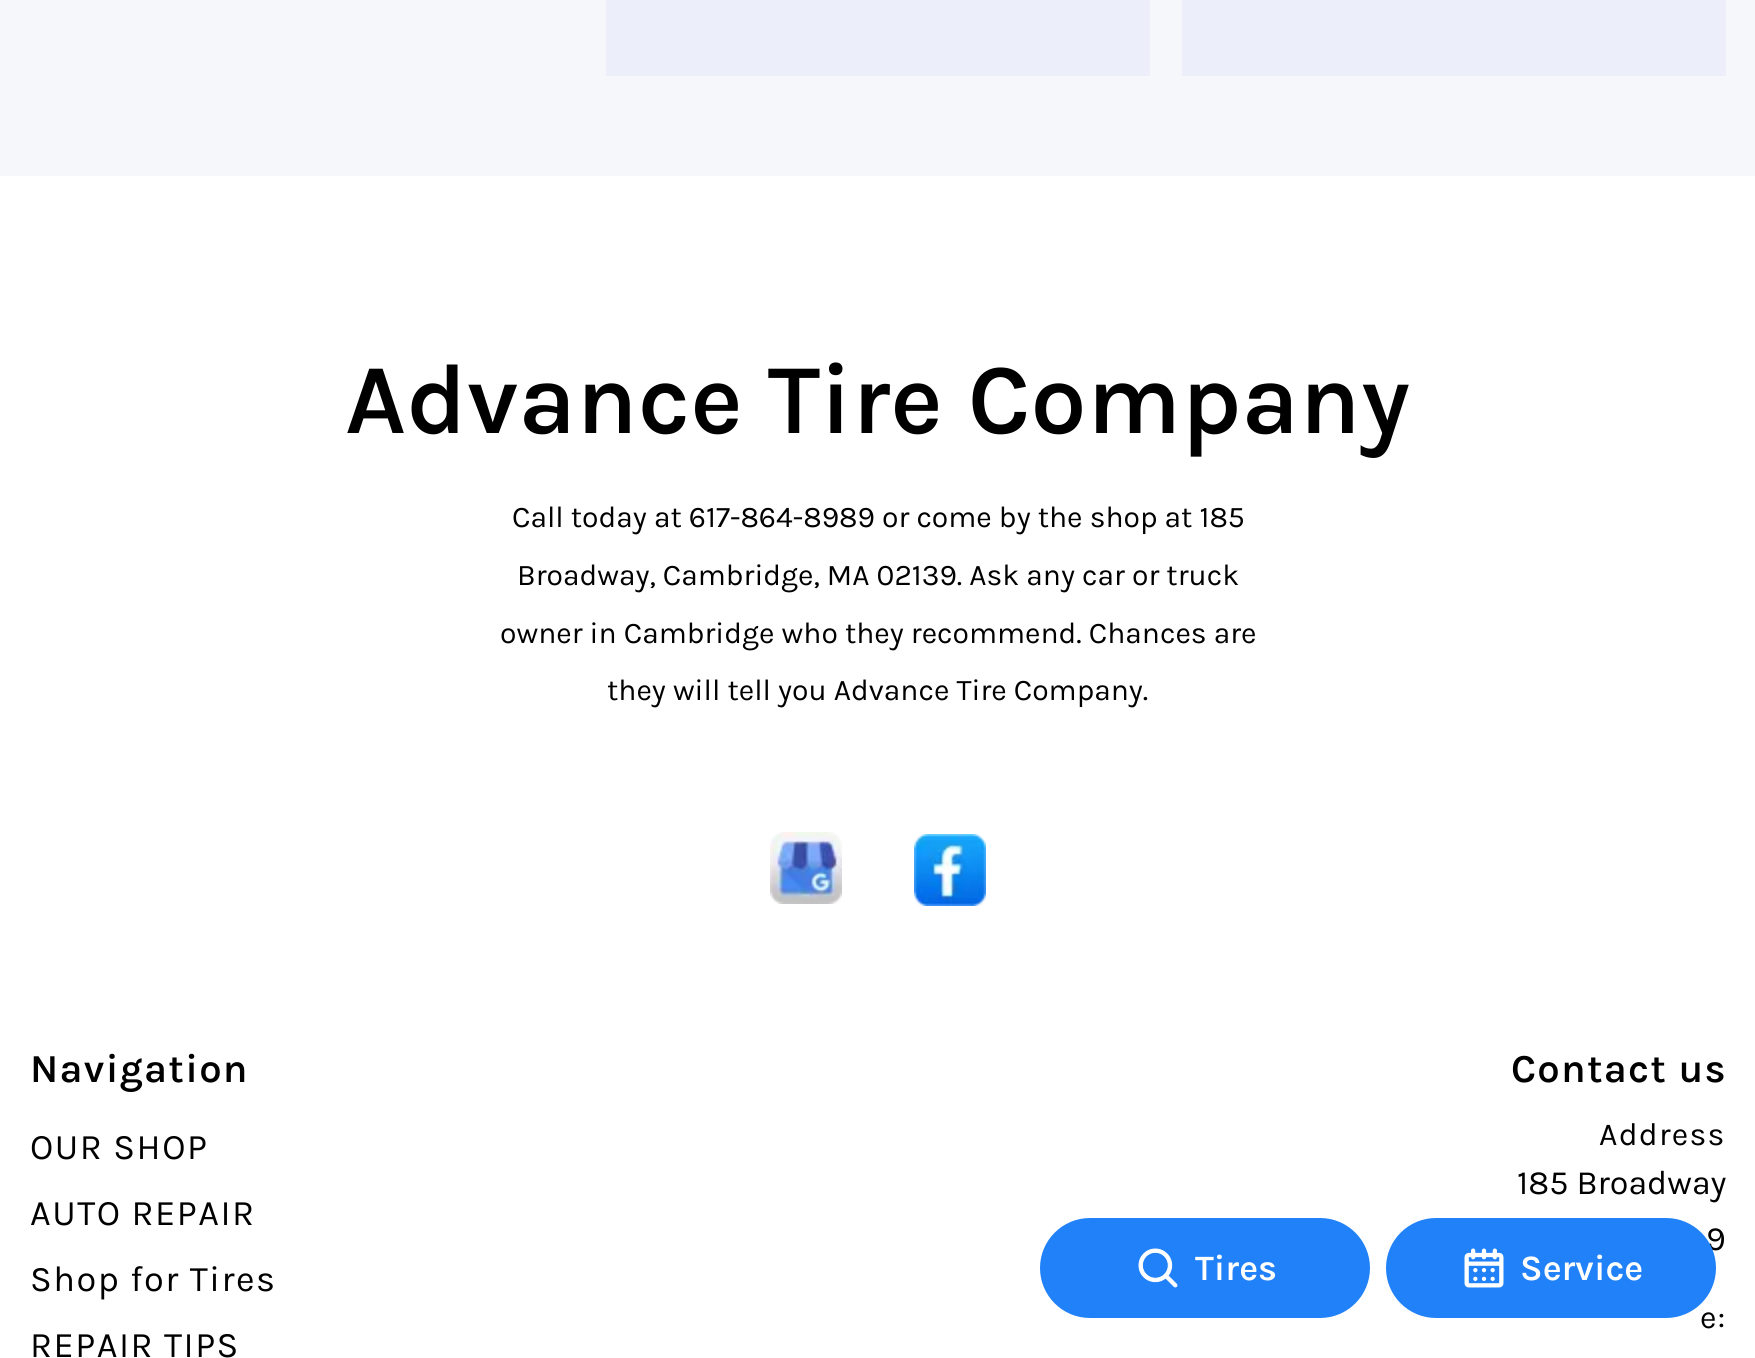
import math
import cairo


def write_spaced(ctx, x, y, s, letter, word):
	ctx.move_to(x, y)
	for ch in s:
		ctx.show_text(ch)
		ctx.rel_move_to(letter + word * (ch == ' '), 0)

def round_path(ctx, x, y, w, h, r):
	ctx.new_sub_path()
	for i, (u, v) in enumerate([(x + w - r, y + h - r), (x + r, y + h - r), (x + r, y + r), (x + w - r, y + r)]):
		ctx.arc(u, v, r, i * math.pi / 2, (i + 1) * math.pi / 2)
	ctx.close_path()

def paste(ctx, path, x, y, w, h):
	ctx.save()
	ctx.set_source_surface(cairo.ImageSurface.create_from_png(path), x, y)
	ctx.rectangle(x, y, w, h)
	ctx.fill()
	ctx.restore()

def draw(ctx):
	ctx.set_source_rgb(1, 1, 1)
	ctx.paint()
	ctx.set_source_rgb(0.961, 0.965, 0.98)
	ctx.rectangle(0, 0, 1755, 176)
	ctx.fill()
	ctx.set_source_rgb(0.922, 0.933, 0.973)
	ctx.rectangle(606, 0, 544, 76)
	ctx.rectangle(1182, 0, 544, 76)
	ctx.fill()
	ctx.select_font_face('Karla SemiBold')
	ctx.set_font_size(100)
	ctx.set_source_rgb(0, 0, 0)
	ctx.move_to(345, 433)
	ctx.show_text('Advance Tire Company')
	ctx.select_font_face('Karla')
	ctx.set_font_size(30)
	for x, y, s in [
		(512, 527, 'Call today at 617-864-8989 or come by the shop at 185'),
		(517, 585, 'Broadway, Cambridge, MA 02139. Ask any car or truck'),
		(500, 643, 'owner in Cambridge who they recommend. Chances are'),
		(607, 700, 'they will tell you Advance Tire Company.'),
	]:
		ctx.move_to(x, y)
		ctx.show_text(s)
	paste(ctx, 'media/1.png', 770, 832, 72, 72)
	paste(ctx, 'media/2.png', 914, 834, 72, 72)
	ctx.select_font_face('Karla SemiBold')
	ctx.set_font_size(40)
	write_spaced(ctx, 30, 1082, 'Navigation', 1.25, 0)
	ctx.select_font_face('Karla')
	ctx.set_font_size(36)
	for x, y, s in [
		(30, 1159, 'OUR SHOP'),
		(30, 1225, 'AUTO REPAIR'),
		(30, 1291, 'Shop for Tires'),
		(30, 1357, 'REPAIR TIPS'),
	]:
		write_spaced(ctx, x, y, s, 1.5, 0)
	ctx.select_font_face('Karla SemiBold')
	ctx.set_font_size(40)
	write_spaced(ctx, 1511, 1082, 'Contact us', 1.25, 0)
	ctx.select_font_face('Karla')
	ctx.set_font_size(32)
	write_spaced(ctx, 1599, 1145, 'Address', 1.25, 0)
	ctx.set_font_size(34)
	ctx.move_to(1517, 1194)
	ctx.show_text('185 Broadway')
	ctx.move_to(1706, 1250)
	ctx.show_text('9')
	ctx.set_font_size(32)
	write_spaced(ctx, 1700, 1328, 'e:', 1.25, 0)
	ctx.set_source_rgb(0.129, 0.506, 0.969)
	round_path(ctx, 1040, 1218, 330, 100, 50)
	ctx.fill()
	paste(ctx, 'media/3.png', 1138, 1248, 40, 40)
	ctx.select_font_face('Karla SemiBold')
	ctx.set_font_size(36)
	ctx.set_source_rgb(1, 1, 1)
	ctx.move_to(1195, 1280)
	ctx.show_text('Tires')
	ctx.set_source_rgb(0.129, 0.506, 0.969)
	round_path(ctx, 1386, 1218, 330, 100, 50)
	ctx.fill()
	paste(ctx, 'media/4.png', 1464, 1248, 40, 40)
	ctx.set_source_rgb(1, 1, 1)
	ctx.move_to(1520, 1280)
	ctx.show_text('Service')


surface = cairo.ImageSurface(cairo.FORMAT_RGB24, 1755, 1358)
ctx = cairo.Context(surface)
options = cairo.FontOptions()
options.set_hint_metrics(cairo.HINT_METRICS_OFF)
options.set_hint_style(cairo.HINT_STYLE_NONE)
ctx.set_font_options(options)
ctx.set_miter_limit(4)
draw(ctx)
surface.write_to_png('image.png')
